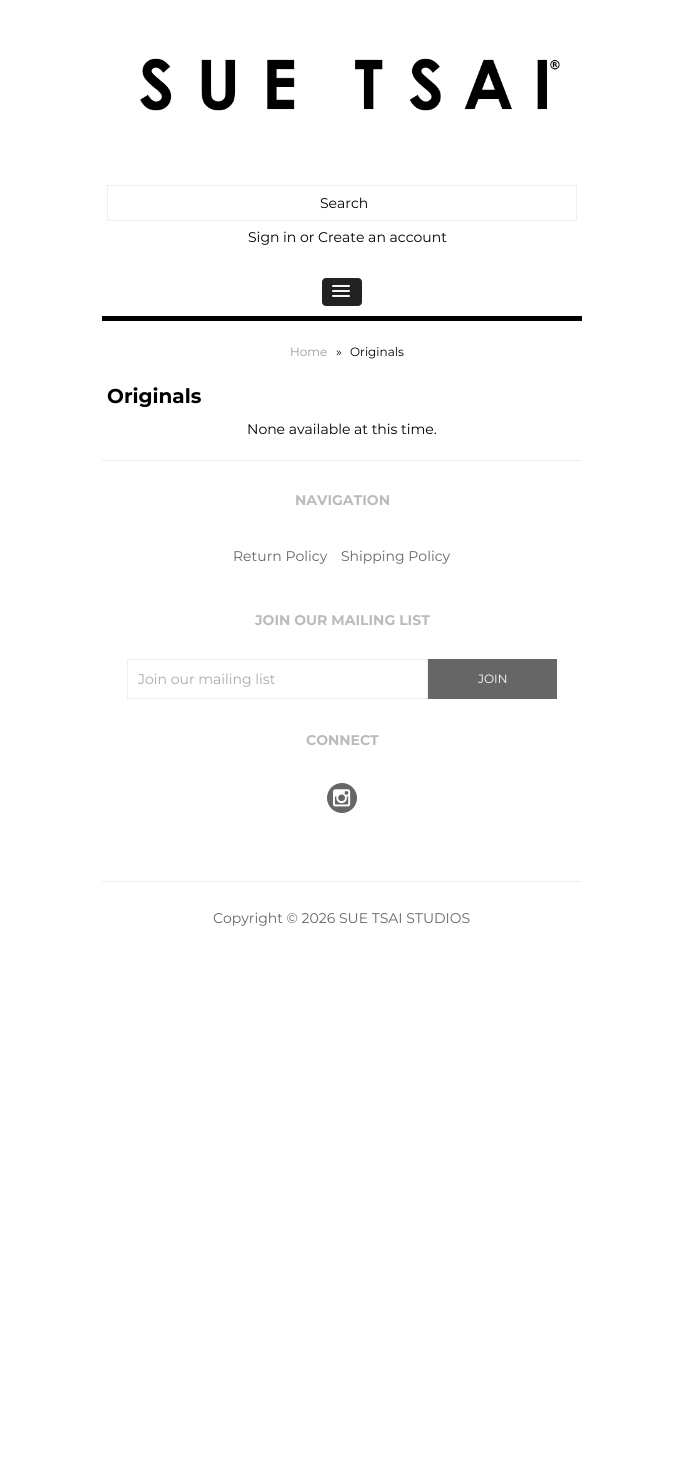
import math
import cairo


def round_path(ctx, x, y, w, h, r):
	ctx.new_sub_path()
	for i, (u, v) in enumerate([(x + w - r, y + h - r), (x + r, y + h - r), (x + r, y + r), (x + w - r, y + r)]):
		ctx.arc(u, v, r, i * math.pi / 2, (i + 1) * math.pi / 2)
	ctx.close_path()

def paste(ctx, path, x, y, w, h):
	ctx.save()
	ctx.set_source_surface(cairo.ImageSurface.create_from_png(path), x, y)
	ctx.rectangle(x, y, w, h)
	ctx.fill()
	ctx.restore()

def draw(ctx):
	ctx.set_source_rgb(1, 1, 1)
	ctx.paint()
	paste(ctx, 'media/1.png', 140, 58, 420, 53)
	ctx.rectangle(107.5, 185.5, 469, 35)
	ctx.set_source_rgb(0.933, 0.933, 0.933)
	ctx.set_line_width(1)
	ctx.stroke()
	ctx.select_font_face('Montserrat')
	ctx.set_font_size(14)
	ctx.set_source_rgb(0, 0, 0)
	ctx.move_to(320, 208)
	ctx.show_text('Search')
	ctx.move_to(248, 242)
	ctx.show_text('Sign in or Create an account')
	ctx.rectangle(102, 316, 480, 5)
	ctx.fill()
	ctx.set_source_rgb(0.133, 0.133, 0.133)
	round_path(ctx, 322, 278, 40, 28, 4)
	ctx.fill()
	ctx.set_source_rgb(0.102, 0.102, 0.102)
	ctx.new_path()
	ctx.move_to(332, 286.5)
	ctx.curve_to(331, 288.5, 335.5, 288, 335.5, 288)
	ctx.line_to(346.5, 288)
	ctx.curve_to(346.5, 288, 351, 288.5, 350, 286.5)
	ctx.curve_to(349, 287.5, 342.5, 287, 341, 287)
	ctx.curve_to(339.5, 287, 333, 287.5, 332, 286.5)
	ctx.close_path()
	ctx.fill()
	ctx.set_source_rgb(0.961, 0.961, 0.961)
	round_path(ctx, 332, 285, 18, 2, 1)
	ctx.fill()
	ctx.set_source_rgb(0.102, 0.102, 0.102)
	ctx.new_path()
	ctx.move_to(332, 291.5)
	ctx.curve_to(331, 293.5, 335.5, 293, 335.5, 293)
	ctx.line_to(346.5, 293)
	ctx.curve_to(346.5, 293, 351, 293.5, 350, 291.5)
	ctx.curve_to(349, 292.5, 342.5, 292, 341, 292)
	ctx.curve_to(339.5, 292, 333, 292.5, 332, 291.5)
	ctx.close_path()
	ctx.fill()
	ctx.set_source_rgb(0.961, 0.961, 0.961)
	round_path(ctx, 332, 290, 18, 2, 1)
	ctx.fill()
	ctx.set_source_rgb(0.102, 0.102, 0.102)
	ctx.new_path()
	ctx.move_to(332, 296.5)
	ctx.curve_to(331, 298.5, 335.5, 298, 335.5, 298)
	ctx.line_to(346.5, 298)
	ctx.curve_to(346.5, 298, 351, 298.5, 350, 296.5)
	ctx.curve_to(349, 297.5, 342.5, 297, 341, 297)
	ctx.curve_to(339.5, 297, 333, 297.5, 332, 296.5)
	ctx.close_path()
	ctx.fill()
	ctx.set_source_rgb(0.961, 0.961, 0.961)
	round_path(ctx, 332, 295, 18, 2, 1)
	ctx.fill()
	ctx.set_font_size(12)
	ctx.set_source_rgb(0.6, 0.6, 0.6)
	ctx.move_to(290, 356)
	ctx.show_text('Home')
	ctx.set_source_rgb(0, 0, 0)
	ctx.move_to(336, 356)
	ctx.show_text('»')
	ctx.move_to(350, 356)
	ctx.show_text('Originals')
	ctx.select_font_face('Montserrat', cairo.FONT_SLANT_NORMAL, cairo.FONT_WEIGHT_BOLD)
	ctx.set_font_size(20)
	ctx.move_to(107, 403)
	ctx.show_text('Originals')
	ctx.select_font_face('Montserrat')
	ctx.set_font_size(14)
	ctx.move_to(247, 434)
	ctx.show_text('None available at this time.')
	ctx.set_source_rgb(0.933, 0.933, 0.933)
	ctx.rectangle(102, 460, 480, 1)
	ctx.fill()
	ctx.rectangle(102, 881, 480, 1)
	ctx.fill()
	ctx.select_font_face('Montserrat', cairo.FONT_SLANT_NORMAL, cairo.FONT_WEIGHT_BOLD)
	ctx.set_source_rgb(0.733, 0.733, 0.733)
	ctx.move_to(295, 505)
	ctx.show_text('NAVIGATION')
	ctx.select_font_face('Montserrat')
	ctx.set_source_rgb(0.4, 0.4, 0.4)
	ctx.move_to(233, 561)
	ctx.show_text('Return Policy')
	ctx.move_to(341, 561)
	ctx.show_text('Shipping Policy')
	ctx.select_font_face('Montserrat', cairo.FONT_SLANT_NORMAL, cairo.FONT_WEIGHT_BOLD)
	ctx.set_source_rgb(0.733, 0.733, 0.733)
	ctx.move_to(255, 625)
	ctx.show_text('JOIN OUR MAILING LIST')
	ctx.rectangle(127.5, 659.5, 300, 39)
	ctx.set_source_rgb(0.933, 0.933, 0.933)
	ctx.stroke()
	ctx.select_font_face('Montserrat')
	ctx.set_source_rgb(0.667, 0.667, 0.667)
	ctx.move_to(138, 684)
	ctx.show_text('Join our mailing list')
	ctx.set_source_rgb(0.4, 0.4, 0.4)
	ctx.rectangle(428, 659, 129, 40)
	ctx.fill()
	ctx.set_font_size(12)
	ctx.set_source_rgb(1, 1, 1)
	ctx.move_to(478, 683)
	ctx.show_text('JOIN')
	ctx.select_font_face('Montserrat', cairo.FONT_SLANT_NORMAL, cairo.FONT_WEIGHT_BOLD)
	ctx.set_font_size(14)
	ctx.set_source_rgb(0.733, 0.733, 0.733)
	ctx.move_to(306, 745)
	ctx.show_text('CONNECT')
	ctx.set_source_rgb(0.4, 0.4, 0.4)
	ctx.new_path()
	ctx.arc(342, 798, 15, 0, 2 * math.pi)
	ctx.fill()
	paste(ctx, 'media/2.png', 333, 789, 18, 18)
	ctx.select_font_face('Montserrat')
	ctx.move_to(213, 923)
	ctx.show_text('Copyright © 2026 SUE TSAI STUDIOS')


surface = cairo.ImageSurface(cairo.FORMAT_RGB24, 684, 1459)
ctx = cairo.Context(surface)
options = cairo.FontOptions()
options.set_hint_metrics(cairo.HINT_METRICS_OFF)
options.set_hint_style(cairo.HINT_STYLE_NONE)
ctx.set_font_options(options)
ctx.set_miter_limit(4)
draw(ctx)
surface.write_to_png('image.png')
